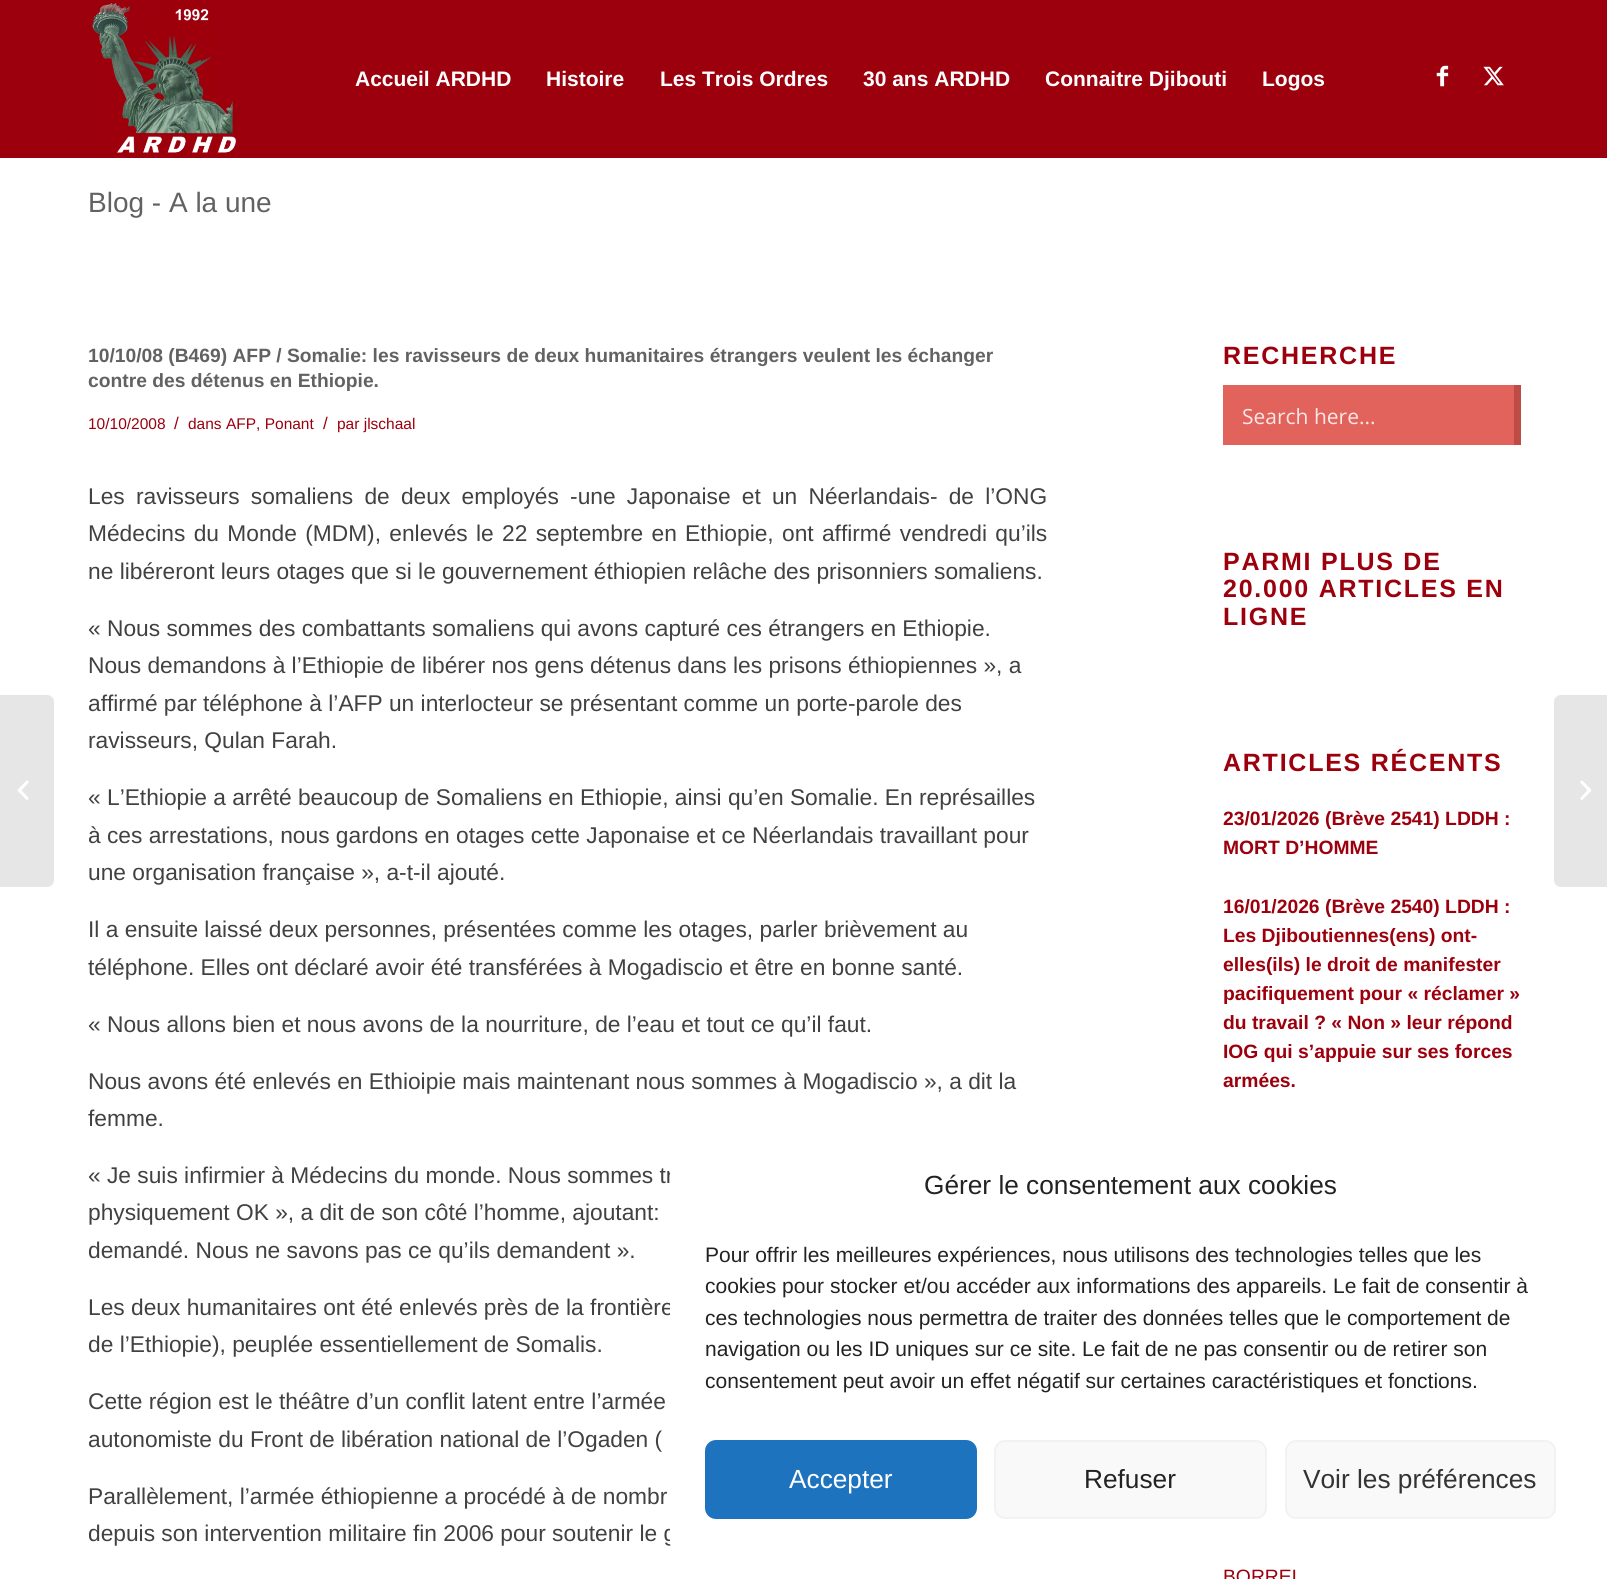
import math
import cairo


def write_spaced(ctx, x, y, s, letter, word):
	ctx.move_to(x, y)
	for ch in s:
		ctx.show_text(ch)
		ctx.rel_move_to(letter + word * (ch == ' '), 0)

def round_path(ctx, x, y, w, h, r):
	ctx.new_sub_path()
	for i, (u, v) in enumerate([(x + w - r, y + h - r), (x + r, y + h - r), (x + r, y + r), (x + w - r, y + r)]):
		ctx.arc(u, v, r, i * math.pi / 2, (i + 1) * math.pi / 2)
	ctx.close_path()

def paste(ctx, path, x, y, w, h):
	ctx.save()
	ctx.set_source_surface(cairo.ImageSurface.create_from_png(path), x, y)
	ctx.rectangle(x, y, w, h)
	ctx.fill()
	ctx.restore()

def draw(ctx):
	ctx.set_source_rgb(1, 1, 1)
	ctx.paint()
	ctx.set_source_rgb(0.612, 0, 0.051)
	ctx.rectangle(0, 0, 1607, 158)
	ctx.fill()
	paste(ctx, 'media/1.png', 92, 3, 144, 150)
	ctx.select_font_face('Liberation Sans', cairo.FONT_SLANT_NORMAL, cairo.FONT_WEIGHT_BOLD)
	ctx.set_font_size(21)
	ctx.set_source_rgb(1, 1, 1)
	for x, y, s in [
		(355, 86, 'Accueil ARDHD'),
		(546, 86, 'Histoire'),
		(660, 86, 'Les Trois Ordres'),
		(863, 86, '30 ans ARDHD'),
		(1045, 86, 'Connaitre Djibouti'),
		(1262, 86, 'Logos'),
	]:
		ctx.move_to(x, y)
		ctx.show_text(s)
	paste(ctx, 'media/2.png', 1436, 65, 13, 22)
	paste(ctx, 'media/3.png', 1483, 66, 21, 20)
	ctx.set_source_rgb(0.902, 0.902, 0.902)
	ctx.new_path()
	ctx.move_to(0, 695)
	ctx.line_to(47, 695)
	ctx.curve_to(51, 695, 54, 698, 54, 702)
	ctx.line_to(54, 880)
	ctx.curve_to(54, 884, 51, 887, 47, 887)
	ctx.line_to(0, 887)
	ctx.close_path()
	ctx.fill()
	paste(ctx, 'media/4.png', 17, 780, 12, 20)
	ctx.select_font_face('Liberation Sans')
	ctx.set_font_size(28)
	ctx.set_source_rgb(0.384, 0.384, 0.384)
	ctx.move_to(88, 212)
	ctx.show_text('Blog - A la une')
	ctx.select_font_face('Liberation Sans', cairo.FONT_SLANT_NORMAL, cairo.FONT_WEIGHT_BOLD)
	ctx.set_font_size(19.25)
	ctx.move_to(88, 362)
	ctx.show_text('10/10/08 (B469) AFP / Somalie: les ravisseurs de deux humanitaires étrangers veulent les échanger')
	ctx.move_to(88, 387)
	ctx.show_text('contre des détenus en Ethiopie.')
	ctx.select_font_face('Liberation Sans')
	ctx.set_font_size(15.5)
	ctx.set_source_rgb(0.612, 0, 0.051)
	ctx.move_to(88, 429)
	ctx.show_text('10/10/2008')
	ctx.set_font_size(17)
	ctx.move_to(174, 429)
	ctx.show_text('/')
	ctx.set_font_size(15.5)
	ctx.move_to(188, 429)
	ctx.show_text('dans AFP, Ponant')
	ctx.set_font_size(17)
	ctx.move_to(323, 429)
	ctx.show_text('/')
	ctx.set_font_size(15.5)
	ctx.move_to(337, 429)
	ctx.show_text('par jlschaal')
	ctx.set_font_size(22.75)
	ctx.set_source_rgb(0.259, 0.251, 0.251)
	write_spaced(ctx, 88, 504, 'Les ravisseurs somaliens de deux employés -une Japonaise et un Néerlandais- de l’ONG', 0, 4.9)
	write_spaced(ctx, 88, 541, 'Médecins du Monde (MDM), enlevés le 22 septembre en Ethiopie, ont affirmé vendredi qu’ils', 0, 2)
	for x, y, s in [
		(88, 579, 'ne libéreront leurs otages que si le gouvernement éthiopien relâche des prisonniers somaliens.'),
		(88, 636, '« Nous sommes des combattants somaliens qui avons capturé ces étrangers en Ethiopie.'),
		(88, 673, 'Nous demandons à l’Ethiopie de libérer nos gens détenus dans les prisons éthiopiennes », a'),
		(88, 711, 'affirmé par téléphone à l’AFP un interlocteur se présentant comme un porte-parole des'),
		(88, 748, 'ravisseurs, Qulan Farah.'),
		(88, 805, '« L’Ethiopie a arrêté beaucoup de Somaliens en Ethiopie, ainsi qu’en Somalie. En représailles'),
		(88, 843, 'à ces arrestations, nous gardons en otages cette Japonaise et ce Néerlandais travaillant pour'),
		(88, 880, 'une organisation française », a-t-il ajouté.'),
		(88, 937, 'Il a ensuite laissé deux personnes, présentées comme les otages, parler brièvement au'),
		(88, 975, 'téléphone. Elles ont déclaré avoir été transférées à Mogadiscio et être en bonne santé.'),
		(88, 1032, '« Nous allons bien et nous avons de la nourriture, de l’eau et tout ce qu’il faut.'),
		(88, 1089, 'Nous avons été enlevés en Ethioipie mais maintenant nous sommes à Mogadiscio », a dit la'),
		(88, 1126, 'femme.'),
		(88, 1183, '« Je suis infirmier à Médecins du monde. Nous sommes tr'),
		(88, 1220, 'physiquement OK », a dit de son côté l’homme, ajoutant:'),
		(88, 1258, 'demandé. Nous ne savons pas ce qu’ils demandent ».'),
		(88, 1315, 'Les deux humanitaires ont été enlevés près de la frontière'),
		(88, 1352, 'de l’Ethiopie), peuplée essentiellement de Somalis.'),
		(88, 1409, 'Cette région est le théâtre d’un conflit latent entre l’armée'),
		(88, 1447, 'autonomiste du Front de libération national de l’Ogaden ('),
		(88, 1504, 'Parallèlement, l’armée éthiopienne a procédé à de nombr'),
		(88, 1541, 'depuis son intervention militaire fin 2006 pour soutenir le g'),
	]:
		ctx.move_to(x, y)
		ctx.show_text(s)
	ctx.select_font_face('Liberation Sans', cairo.FONT_SLANT_NORMAL, cairo.FONT_WEIGHT_BOLD)
	ctx.set_font_size(25)
	ctx.set_source_rgb(0.612, 0, 0.051)
	write_spaced(ctx, 1223, 364, 'RECHERCHE', 1.75, 0)
	ctx.set_source_rgb(0.882, 0.388, 0.361)
	ctx.rectangle(1223, 385, 291, 60)
	ctx.fill()
	ctx.select_font_face('Open Sans')
	ctx.set_font_size(21)
	ctx.set_source_rgb(0.984, 0.91, 0.906)
	ctx.move_to(1242, 424)
	ctx.show_text('Search here...')
	ctx.set_source_rgb(0.745, 0.298, 0.275)
	ctx.rectangle(1514, 385, 7, 60)
	ctx.fill()
	ctx.select_font_face('Liberation Sans', cairo.FONT_SLANT_NORMAL, cairo.FONT_WEIGHT_BOLD)
	ctx.set_font_size(25)
	ctx.set_source_rgb(0.612, 0, 0.051)
	for x, y, s in [
		(1223, 570, 'PARMI PLUS DE'),
		(1223, 597, '20.000 ARTICLES EN'),
		(1223, 625, 'LIGNE'),
		(1223, 771, 'ARTICLES RÉCENTS'),
	]:
		write_spaced(ctx, x, y, s, 1.75, 0)
	ctx.set_font_size(19.3)
	for x, y, s in [
		(1223, 825, '23/01/2026 (Brève 2541) LDDH :'),
		(1223, 854, 'MORT D’HOMME'),
		(1223, 913, '16/01/2026 (Brève 2540) LDDH :'),
		(1223, 942, 'Les Djiboutiennes(ens) ont-'),
		(1223, 971, 'elles(ils) le droit de manifester'),
		(1223, 1000, 'pacifiquement pour « réclamer »'),
		(1223, 1029, 'du travail ? « Non » leur répond'),
		(1223, 1058, 'IOG qui s’appuie sur ses forces'),
		(1223, 1087, 'armées.'),
	]:
		ctx.move_to(x, y)
		ctx.show_text(s)
	ctx.select_font_face('Liberation Sans')
	ctx.move_to(1223, 1583)
	ctx.show_text('BORREL')
	ctx.set_source_rgb(0.902, 0.902, 0.902)
	ctx.new_path()
	ctx.move_to(1561, 695)
	ctx.line_to(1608, 695)
	ctx.line_to(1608, 887)
	ctx.line_to(1561, 887)
	ctx.curve_to(1557, 887, 1554, 884, 1554, 880)
	ctx.line_to(1554, 702)
	ctx.curve_to(1554, 698, 1557, 695, 1561, 695)
	ctx.close_path()
	ctx.fill()
	paste(ctx, 'media/5.png', 1580, 780, 12, 20)
	ctx.set_source_rgb(1, 1, 1)
	round_path(ctx, 670, 1141, 921, 422, 21)
	ctx.fill()
	ctx.set_font_size(26.25)
	ctx.set_source_rgb(0.133, 0.133, 0.133)
	ctx.move_to(924, 1194)
	ctx.show_text('Gérer le consentement aux cookies')
	ctx.set_font_size(21)
	for x, y, s in [
		(705, 1262, 'Pour offrir les meilleures expériences, nous utilisons des technologies telles que les'),
		(705, 1293, 'cookies pour stocker et/ou accéder aux informations des appareils. Le fait de consentir à'),
		(705, 1325, 'ces technologies nous permettra de traiter des données telles que le comportement de'),
		(705, 1356, 'navigation ou les ID uniques sur ce site. Le fait de ne pas consentir ou de retirer son'),
		(705, 1388, 'consentement peut avoir un effet négatif sur certaines caractéristiques et fonctions.'),
	]:
		ctx.move_to(x, y)
		ctx.show_text(s)
	ctx.set_source_rgb(0.118, 0.451, 0.745)
	round_path(ctx, 706, 1441, 270, 77, 10)
	ctx.fill_preserve()
	ctx.stroke()
	ctx.set_font_size(26.25)
	ctx.set_source_rgb(1, 1, 1)
	ctx.move_to(789, 1488)
	ctx.show_text('Accepter')
	ctx.set_source_rgb(0.976, 0.976, 0.976)
	round_path(ctx, 995, 1441, 271, 77, 10)
	ctx.fill_preserve()
	ctx.set_source_rgb(0.949, 0.949, 0.949)
	ctx.stroke()
	ctx.set_source_rgb(0.133, 0.133, 0.133)
	ctx.move_to(1084, 1488)
	ctx.show_text('Refuser')
	ctx.set_source_rgb(0.976, 0.976, 0.976)
	round_path(ctx, 1286, 1441, 269, 77, 10)
	ctx.fill_preserve()
	ctx.set_source_rgb(0.949, 0.949, 0.949)
	ctx.stroke()
	ctx.set_source_rgb(0.2, 0.2, 0.2)
	ctx.move_to(1303, 1488)
	ctx.show_text('Voir les préférences')


surface = cairo.ImageSurface(cairo.FORMAT_RGB24, 1607, 1579)
ctx = cairo.Context(surface)
options = cairo.FontOptions()
options.set_hint_metrics(cairo.HINT_METRICS_OFF)
options.set_hint_style(cairo.HINT_STYLE_NONE)
ctx.set_font_options(options)
ctx.set_miter_limit(4)
draw(ctx)
surface.write_to_png('image.png')
